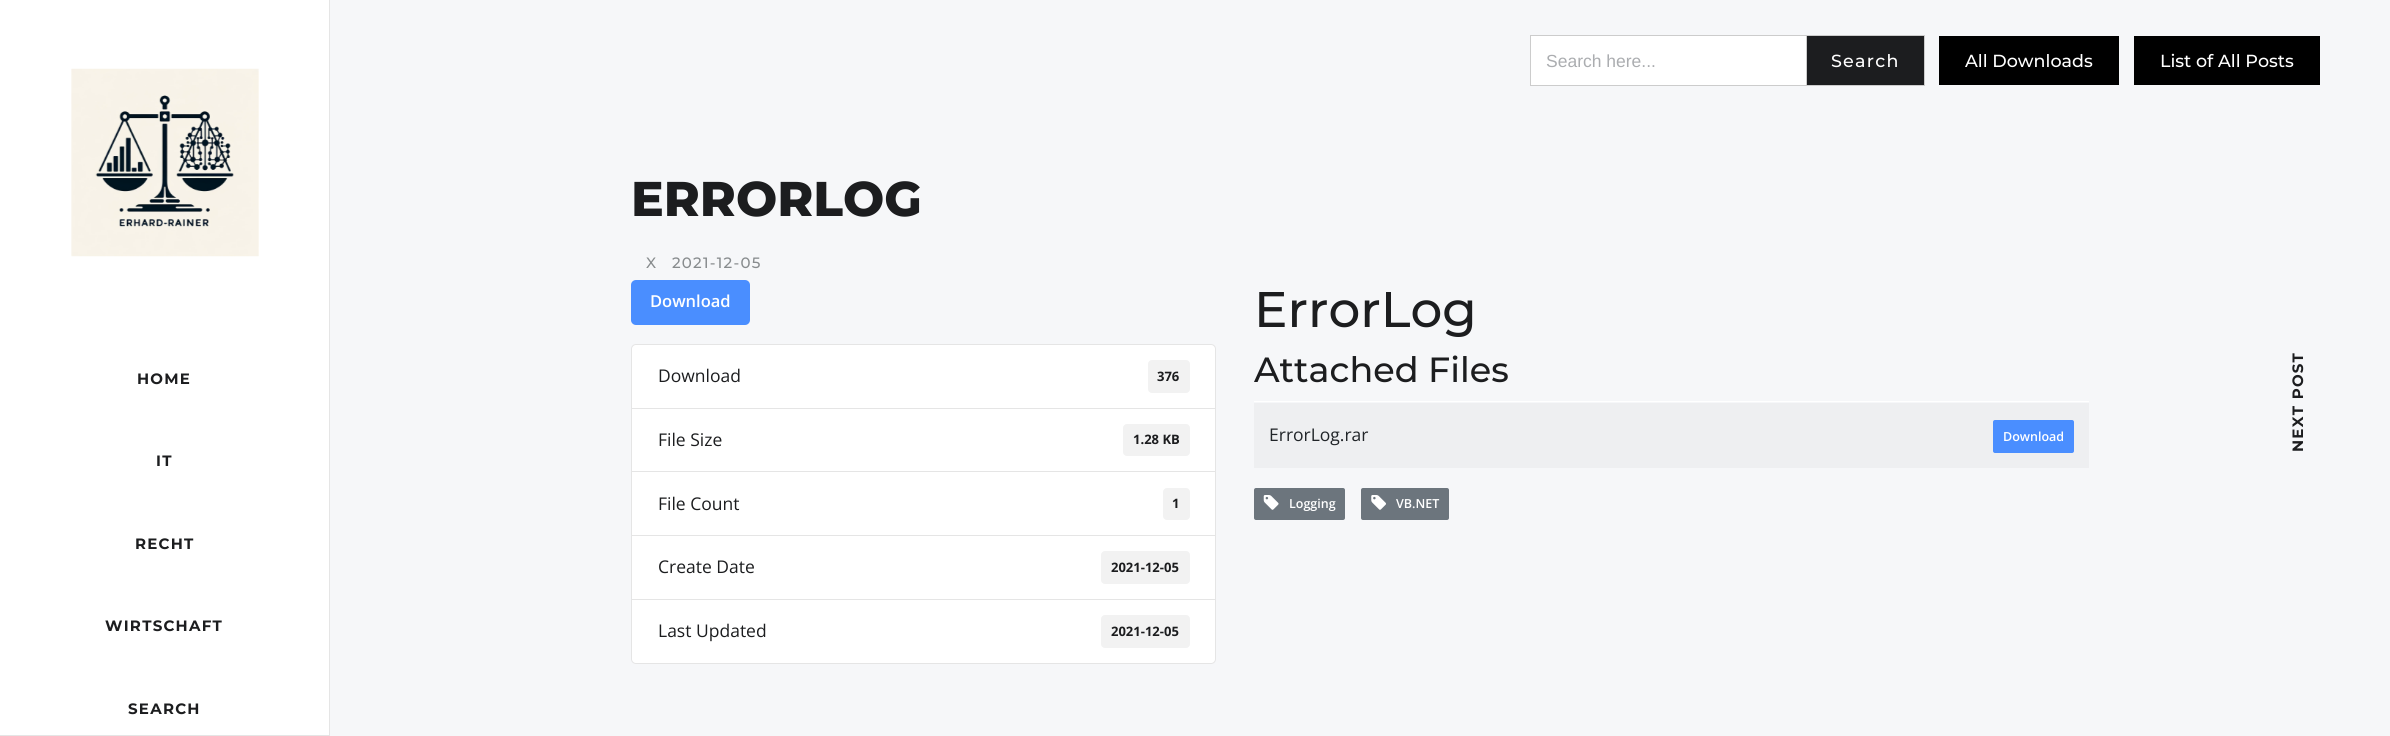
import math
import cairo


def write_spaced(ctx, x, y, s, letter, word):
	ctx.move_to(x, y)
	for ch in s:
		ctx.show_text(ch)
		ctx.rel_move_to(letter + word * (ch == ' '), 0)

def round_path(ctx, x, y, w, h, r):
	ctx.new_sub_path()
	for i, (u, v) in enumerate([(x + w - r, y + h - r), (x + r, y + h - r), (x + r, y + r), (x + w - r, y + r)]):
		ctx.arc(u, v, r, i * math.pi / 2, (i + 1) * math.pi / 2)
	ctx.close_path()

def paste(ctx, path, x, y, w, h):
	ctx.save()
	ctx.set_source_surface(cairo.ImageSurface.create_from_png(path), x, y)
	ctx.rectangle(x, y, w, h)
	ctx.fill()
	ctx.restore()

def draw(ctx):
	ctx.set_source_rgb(0.961, 0.965, 0.973)
	ctx.paint()
	ctx.set_source_rgb(1, 1, 1)
	ctx.rectangle(0, 0, 329, 735)
	ctx.fill()
	ctx.set_source_rgb(0.898, 0.898, 0.898)
	ctx.rectangle(329, 0, 1, 736)
	ctx.rectangle(0, 735, 330, 1)
	ctx.fill()
	paste(ctx, 'media/1.png', 71, 68, 188, 189)
	ctx.select_font_face('Montserrat', cairo.FONT_SLANT_NORMAL, cairo.FONT_WEIGHT_BOLD)
	ctx.set_font_size(15)
	ctx.set_source_rgb(0.11, 0.114, 0.122)
	for x, y, s in [
		(137, 384, 'HOME'),
		(156, 466, 'IT'),
		(135, 549, 'RECHT'),
		(105, 631, 'WIRTSCHAFT'),
		(128, 714, 'SEARCH'),
	]:
		write_spaced(ctx, x, y, s, 1.25, 0)
	ctx.set_source_rgb(1, 1, 1)
	ctx.rectangle(1531, 36, 275, 49)
	ctx.fill()
	ctx.rectangle(1530.5, 35.5, 394, 50)
	ctx.set_source_rgb(0.8, 0.8, 0.8)
	ctx.set_line_width(1)
	ctx.stroke()
	ctx.select_font_face('Liberation Sans')
	ctx.set_font_size(17.5)
	ctx.set_source_rgb(0.671, 0.678, 0.69)
	ctx.move_to(1546, 67)
	ctx.show_text('Search here...')
	ctx.set_source_rgb(0.11, 0.114, 0.122)
	ctx.rectangle(1806.5, 35.5, 118, 50)
	ctx.fill_preserve()
	ctx.set_source_rgb(0.8, 0.8, 0.8)
	ctx.stroke()
	ctx.select_font_face('Montserrat Medium')
	ctx.set_source_rgb(1, 1, 1)
	write_spaced(ctx, 1831, 67, 'Search', 1.25, 0)
	ctx.set_source_rgb(0, 0, 0)
	ctx.rectangle(1939, 36, 180, 49)
	ctx.fill()
	ctx.set_source_rgb(1, 1, 1)
	ctx.move_to(1965, 67)
	ctx.show_text('All Downloads')
	ctx.set_source_rgb(0, 0, 0)
	ctx.rectangle(2134, 36, 186, 49)
	ctx.fill()
	ctx.set_source_rgb(1, 1, 1)
	ctx.move_to(2160, 67)
	ctx.show_text('List of All Posts')
	ctx.select_font_face('Montserrat ExtraBold')
	ctx.set_font_size(48.75)
	ctx.set_source_rgb(0.11, 0.114, 0.122)
	ctx.move_to(631, 216)
	ctx.show_text('ERRORLOG')
	ctx.select_font_face('Montserrat Medium')
	ctx.set_font_size(15)
	ctx.set_source_rgb(0.533, 0.549, 0.557)
	write_spaced(ctx, 646, 268, 'X', 1.25, 0)
	write_spaced(ctx, 672, 268, '2021-12-05', 1.25, 0)
	ctx.set_source_rgb(0.29, 0.557, 1)
	round_path(ctx, 631, 280, 119, 45, 5)
	ctx.fill()
	ctx.select_font_face('Open Sans SemiBold')
	ctx.set_font_size(16.5)
	ctx.set_source_rgb(1, 1, 1)
	ctx.move_to(650, 307)
	ctx.show_text('Download')
	ctx.new_path()
	ctx.move_to(636, 344.5)
	ctx.line_to(1211, 344.5)
	ctx.curve_to(1213.5, 344.5, 1215.5, 346.5, 1215.5, 349)
	ctx.line_to(1215.5, 408.5)
	ctx.line_to(631.5, 408.5)
	ctx.line_to(631.5, 349)
	ctx.curve_to(631.5, 346.5, 633.5, 344.5, 636, 344.5)
	ctx.close_path()
	ctx.fill_preserve()
	ctx.set_source_rgb(0.898, 0.898, 0.898)
	ctx.stroke()
	ctx.select_font_face('Open Sans')
	ctx.set_font_size(17.5)
	ctx.set_source_rgb(0.11, 0.114, 0.122)
	ctx.move_to(658, 382)
	ctx.show_text('Download')
	ctx.set_source_rgb(0.949, 0.949, 0.949)
	round_path(ctx, 1148, 360, 42, 33, 4)
	ctx.fill()
	ctx.select_font_face('Open Sans', cairo.FONT_SLANT_NORMAL, cairo.FONT_WEIGHT_BOLD)
	ctx.set_font_size(13)
	ctx.set_source_rgb(0.11, 0.114, 0.122)
	ctx.move_to(1157, 381)
	ctx.show_text('376')
	ctx.set_source_rgb(1, 1, 1)
	ctx.rectangle(632, 409, 583, 62)
	ctx.fill()
	ctx.rectangle(631.5, 408.5, 584, 64)
	ctx.set_source_rgb(0.898, 0.898, 0.898)
	ctx.stroke()
	ctx.select_font_face('Open Sans')
	ctx.set_font_size(17.5)
	ctx.set_source_rgb(0.11, 0.114, 0.122)
	ctx.move_to(658, 446)
	ctx.show_text('File Size')
	ctx.set_source_rgb(0.949, 0.949, 0.949)
	round_path(ctx, 1123, 424, 67, 32, 4)
	ctx.fill()
	ctx.select_font_face('Open Sans', cairo.FONT_SLANT_NORMAL, cairo.FONT_WEIGHT_BOLD)
	ctx.set_font_size(13)
	ctx.set_source_rgb(0.11, 0.114, 0.122)
	ctx.move_to(1133, 444)
	ctx.show_text('1.28 KB')
	ctx.set_source_rgb(1, 1, 1)
	ctx.rectangle(631.5, 471.5, 584, 64)
	ctx.fill_preserve()
	ctx.set_source_rgb(0.898, 0.898, 0.898)
	ctx.stroke()
	ctx.select_font_face('Open Sans')
	ctx.set_font_size(17.5)
	ctx.set_source_rgb(0.11, 0.114, 0.122)
	ctx.move_to(658, 510)
	ctx.show_text('File Count')
	ctx.set_source_rgb(0.949, 0.949, 0.949)
	round_path(ctx, 1163, 488, 27, 32, 4)
	ctx.fill()
	ctx.select_font_face('Open Sans', cairo.FONT_SLANT_NORMAL, cairo.FONT_WEIGHT_BOLD)
	ctx.set_font_size(13)
	ctx.set_source_rgb(0.11, 0.114, 0.122)
	ctx.move_to(1172, 508)
	ctx.show_text('1')
	ctx.set_source_rgb(1, 1, 1)
	ctx.rectangle(631.5, 535.5, 584, 64)
	ctx.fill_preserve()
	ctx.set_source_rgb(0.898, 0.898, 0.898)
	ctx.stroke()
	ctx.select_font_face('Open Sans')
	ctx.set_font_size(17.5)
	ctx.set_source_rgb(0.11, 0.114, 0.122)
	ctx.move_to(658, 573)
	ctx.show_text('Create Date')
	ctx.set_source_rgb(0.949, 0.949, 0.949)
	round_path(ctx, 1101, 551, 89, 33, 4)
	ctx.fill()
	ctx.select_font_face('Open Sans', cairo.FONT_SLANT_NORMAL, cairo.FONT_WEIGHT_BOLD)
	ctx.set_font_size(13)
	ctx.set_source_rgb(0.11, 0.114, 0.122)
	ctx.move_to(1111, 572)
	ctx.show_text('2021-12-05')
	ctx.set_source_rgb(1, 1, 1)
	ctx.new_path()
	ctx.move_to(631.5, 599.5)
	ctx.line_to(1215.5, 599.5)
	ctx.line_to(1215.5, 659)
	ctx.curve_to(1215.5, 661.5, 1213.5, 663.5, 1211, 663.5)
	ctx.line_to(636, 663.5)
	ctx.curve_to(633.5, 663.5, 631.5, 661.5, 631.5, 659)
	ctx.close_path()
	ctx.fill_preserve()
	ctx.set_source_rgb(0.898, 0.898, 0.898)
	ctx.stroke()
	ctx.select_font_face('Open Sans')
	ctx.set_font_size(17.5)
	ctx.set_source_rgb(0.11, 0.114, 0.122)
	ctx.move_to(658, 637)
	ctx.show_text('Last Updated')
	ctx.set_source_rgb(0.949, 0.949, 0.949)
	round_path(ctx, 1101, 615, 89, 33, 4)
	ctx.fill()
	ctx.select_font_face('Open Sans', cairo.FONT_SLANT_NORMAL, cairo.FONT_WEIGHT_BOLD)
	ctx.set_font_size(13)
	ctx.set_source_rgb(0.11, 0.114, 0.122)
	ctx.move_to(1111, 636)
	ctx.show_text('2021-12-05')
	ctx.select_font_face('Montserrat Medium')
	ctx.set_font_size(50)
	ctx.move_to(1254, 327)
	ctx.show_text('ErrorLog')
	ctx.set_font_size(35)
	ctx.move_to(1254, 382)
	ctx.show_text('Attached Files')
	ctx.set_source_rgb(0.933, 0.937, 0.945)
	ctx.rectangle(1254, 403, 835, 65)
	ctx.fill()
	ctx.select_font_face('Open Sans')
	ctx.set_font_size(17.5)
	ctx.set_source_rgb(0.129, 0.145, 0.161)
	ctx.move_to(1269, 441)
	ctx.show_text('ErrorLog.rar')
	ctx.set_source_rgb(1, 1, 1)
	ctx.rectangle(1254, 401, 835, 1)
	ctx.fill()
	ctx.set_source_rgb(0.29, 0.557, 1)
	round_path(ctx, 1993, 420, 81, 33, 2)
	ctx.fill()
	ctx.select_font_face('Open Sans SemiBold')
	ctx.set_font_size(12.5)
	ctx.set_source_rgb(1, 1, 1)
	ctx.move_to(2003, 441)
	ctx.show_text('Download')
	ctx.set_source_rgb(0.424, 0.459, 0.49)
	round_path(ctx, 1254, 488, 91, 32, 2)
	ctx.fill()
	paste(ctx, 'media/2.png', 1263, 495, 16, 15)
	ctx.set_source_rgb(1, 1, 1)
	ctx.move_to(1289, 508)
	ctx.show_text('Logging')
	ctx.set_source_rgb(0.424, 0.459, 0.49)
	round_path(ctx, 1361, 488, 88, 32, 2)
	ctx.fill()
	paste(ctx, 'media/3.png', 1371, 495, 15, 15)
	ctx.set_source_rgb(1, 1, 1)
	ctx.move_to(1396, 508)
	ctx.show_text('VB.NET')
	ctx.select_font_face('Montserrat', cairo.FONT_SLANT_NORMAL, cairo.FONT_WEIGHT_BOLD)
	ctx.set_font_size(15)
	ctx.set_source_rgb(0.11, 0.114, 0.122)
	ctx.save()
	ctx.translate(2303, 452)
	ctx.rotate(-90 * math.pi / 180)
	write_spaced(ctx, 0, 0, 'NEXT POST', 1.25, 0)
	ctx.restore()


surface = cairo.ImageSurface(cairo.FORMAT_RGB24, 2390, 736)
ctx = cairo.Context(surface)
options = cairo.FontOptions()
options.set_hint_metrics(cairo.HINT_METRICS_OFF)
options.set_hint_style(cairo.HINT_STYLE_NONE)
ctx.set_font_options(options)
ctx.set_miter_limit(4)
draw(ctx)
surface.write_to_png('image.png')
